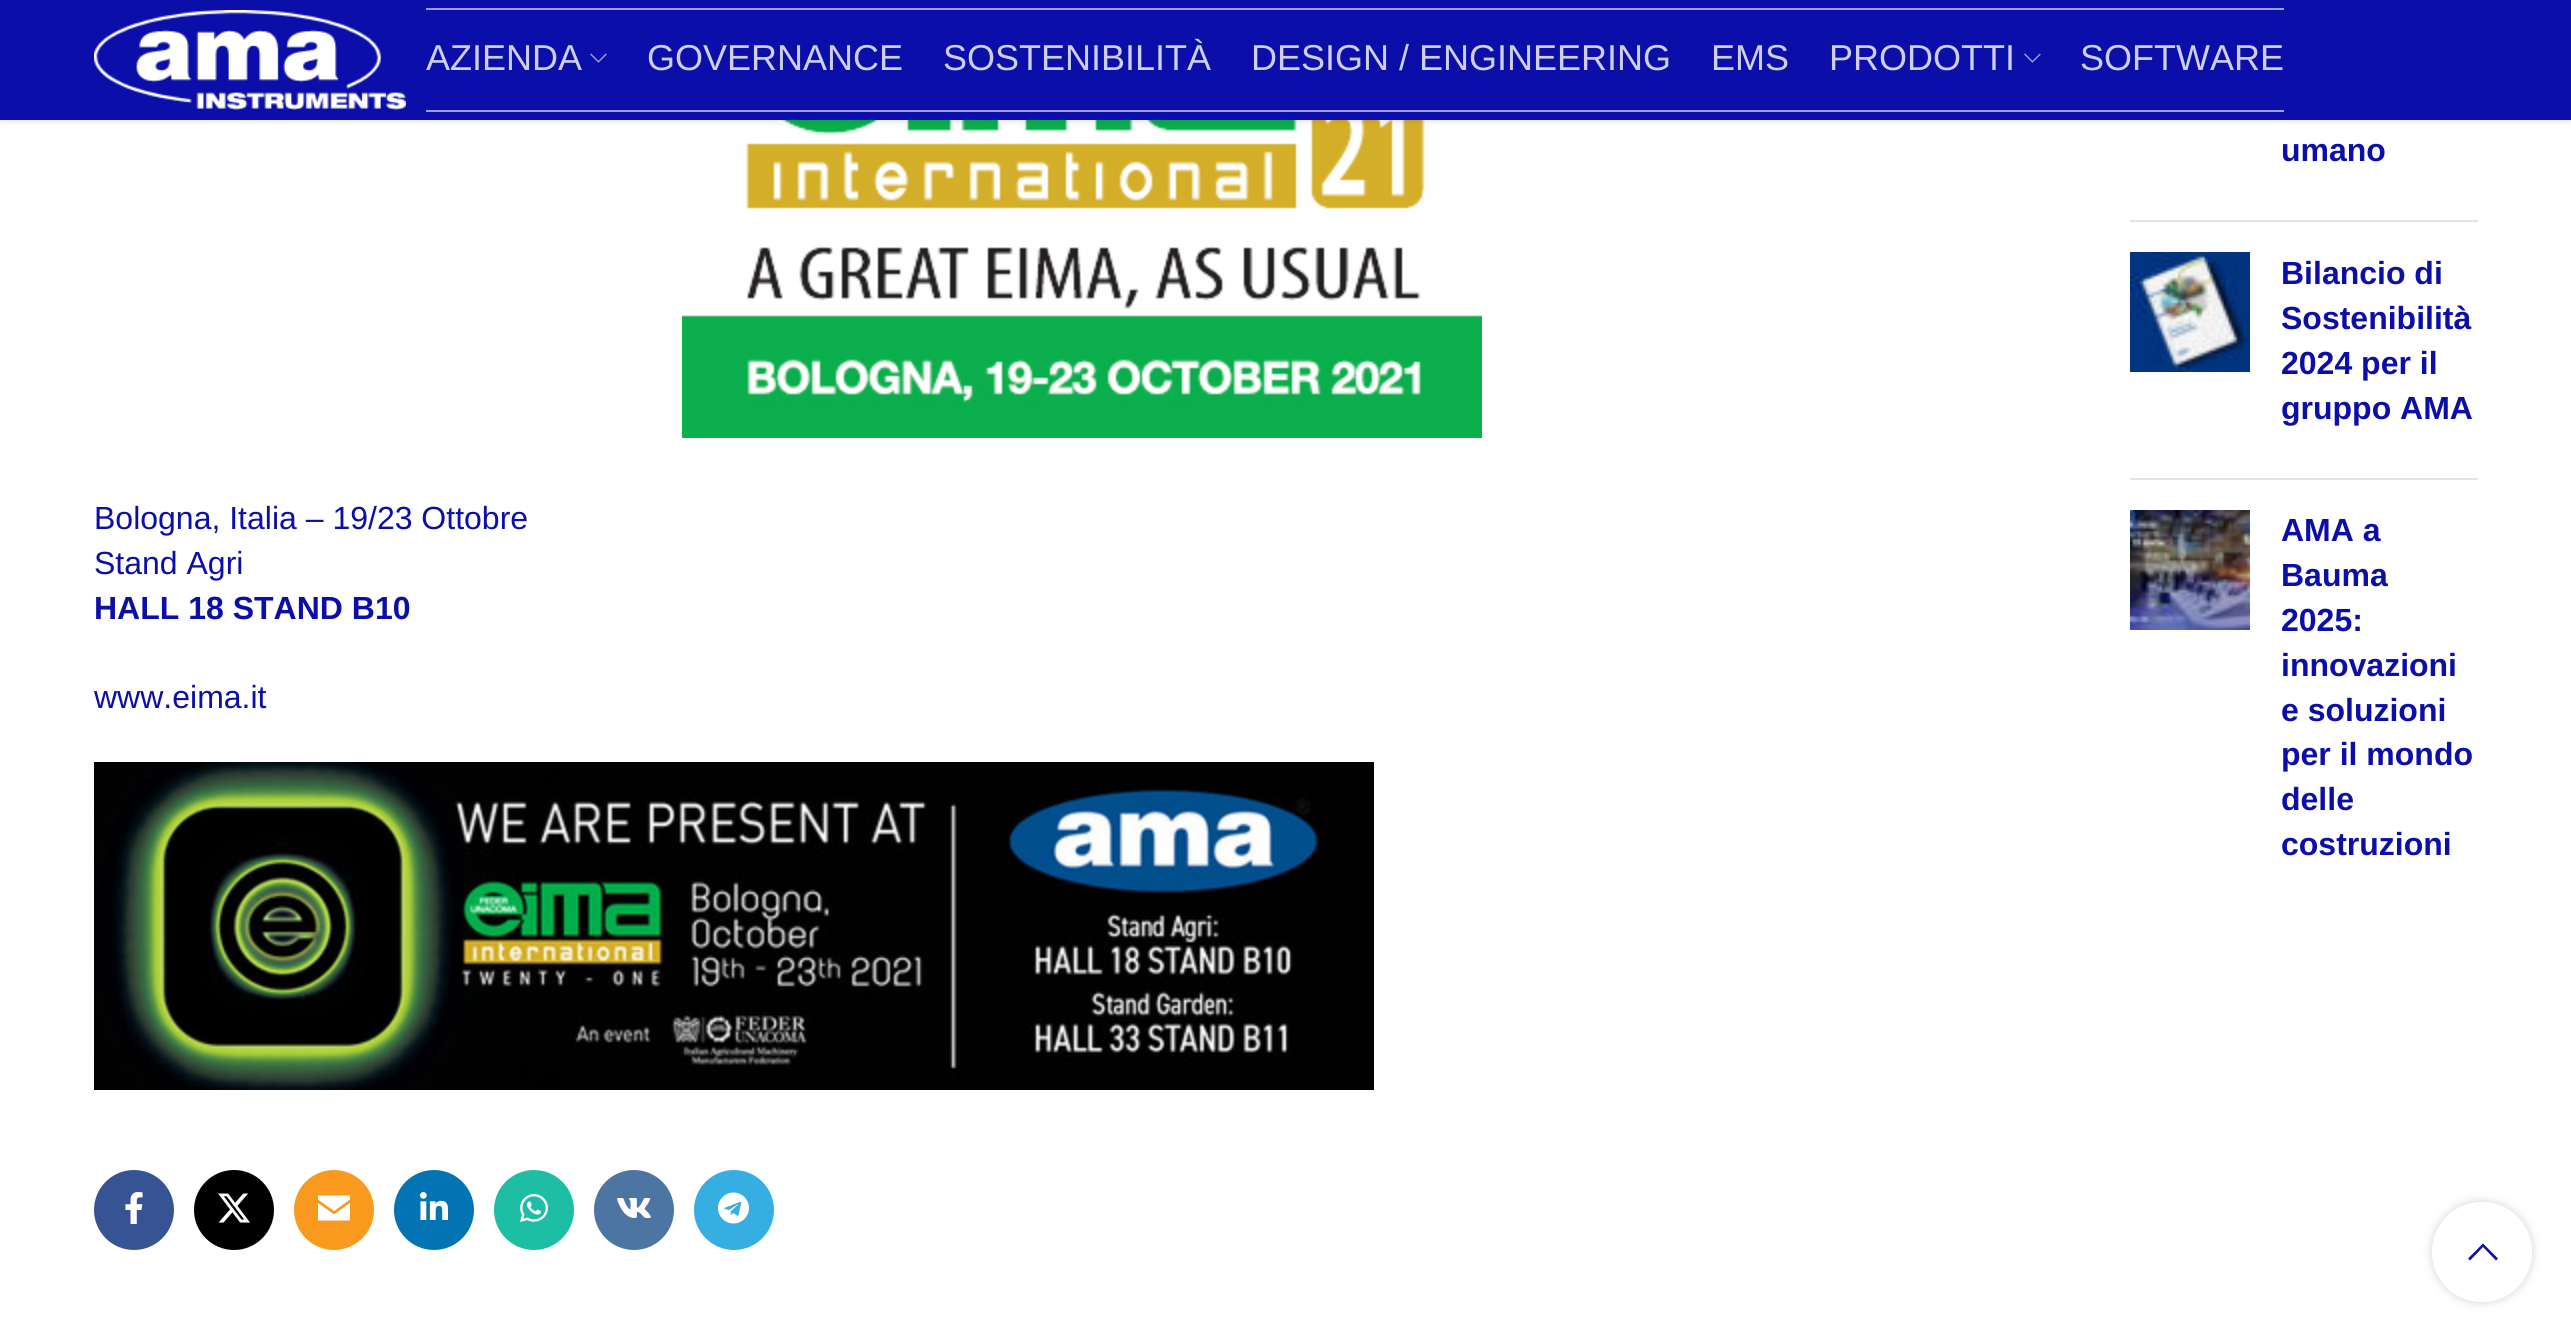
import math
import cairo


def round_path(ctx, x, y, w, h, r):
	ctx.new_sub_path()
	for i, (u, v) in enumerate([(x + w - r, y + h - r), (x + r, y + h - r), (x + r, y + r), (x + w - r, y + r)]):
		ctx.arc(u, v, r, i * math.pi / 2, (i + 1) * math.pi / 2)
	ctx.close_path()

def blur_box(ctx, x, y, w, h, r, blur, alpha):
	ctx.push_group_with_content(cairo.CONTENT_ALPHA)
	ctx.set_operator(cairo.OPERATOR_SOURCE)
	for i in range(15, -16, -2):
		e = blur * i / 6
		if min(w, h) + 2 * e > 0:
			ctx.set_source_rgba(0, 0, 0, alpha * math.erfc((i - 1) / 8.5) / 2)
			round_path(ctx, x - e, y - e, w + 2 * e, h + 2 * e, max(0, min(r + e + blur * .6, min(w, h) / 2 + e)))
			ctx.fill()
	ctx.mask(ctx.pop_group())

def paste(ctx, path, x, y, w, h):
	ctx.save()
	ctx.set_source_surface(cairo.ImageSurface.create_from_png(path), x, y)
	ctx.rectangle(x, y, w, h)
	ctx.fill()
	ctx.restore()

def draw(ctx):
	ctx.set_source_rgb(1, 1, 1)
	ctx.paint()
	paste(ctx, 'media/3.png', 682, 120, 800, 318)
	ctx.set_source_rgb(0, 0, 0)
	blur_box(ctx, 0, 2, 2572, 120, 0, 3, 0.1)
	ctx.set_source_rgb(0.043, 0.055, 0.663)
	ctx.rectangle(0, 0, 2571, 120)
	ctx.fill()
	paste(ctx, 'media/1.png', 94, 10, 312, 100)
	ctx.set_source_rgb(0.616, 0.624, 0.867)
	ctx.rectangle(426, 8, 1858, 2)
	ctx.fill()
	ctx.rectangle(426, 110, 1858, 2)
	ctx.fill()
	ctx.select_font_face('Liberation Sans')
	ctx.set_font_size(36)
	ctx.set_source_rgb(0.808, 0.812, 0.933)
	ctx.move_to(426, 70)
	ctx.show_text('AZIENDA')
	paste(ctx, 'media/2.png', 590, 53, 17, 10)
	for x, y, s in [
		(647, 70, 'GOVERNANCE'),
		(943, 70, 'SOSTENIBILITÀ'),
		(1251, 70, 'DESIGN / ENGINEERING'),
		(1711, 70, 'EMS'),
		(1829, 70, 'PRODOTTI'),
	]:
		ctx.move_to(x, y)
		ctx.show_text(s)
	paste(ctx, 'media/2.png', 2024, 53, 17, 10)
	ctx.move_to(2080, 70)
	ctx.show_text('SOFTWARE')
	ctx.set_font_size(32)
	ctx.set_source_rgb(0.043, 0.055, 0.663)
	ctx.move_to(94, 529)
	ctx.show_text('Bologna, Italia – 19/23 Ottobre')
	ctx.move_to(94, 574)
	ctx.show_text('Stand Agri')
	ctx.select_font_face('Liberation Sans', cairo.FONT_SLANT_NORMAL, cairo.FONT_WEIGHT_BOLD)
	ctx.move_to(94, 619)
	ctx.show_text('HALL 18 STAND B10')
	ctx.select_font_face('Liberation Sans')
	ctx.move_to(94, 708)
	ctx.show_text('www.eima.it')
	paste(ctx, 'media/4.png', 94, 762, 1280, 328)
	ctx.set_source_rgb(0.212, 0.329, 0.576)
	ctx.arc(134, 1210, 40, 0, 2 * math.pi)
	ctx.fill()
	paste(ctx, 'media/5.png', 125, 1192, 18, 32)
	ctx.set_source_rgb(0, 0, 0)
	ctx.arc(234, 1210, 40, 0, 2 * math.pi)
	ctx.fill()
	paste(ctx, 'media/6.png', 218, 1193, 32, 30)
	ctx.set_source_rgb(0.973, 0.604, 0.118)
	ctx.arc(334, 1210, 40, 0, 2 * math.pi)
	ctx.fill()
	ctx.set_source_rgb(1, 1, 1)
	ctx.new_path()
	ctx.move_to(350, 1195.5)
	ctx.line_to(318, 1195.5)
	ctx.line_to(318, 1199.5)
	ctx.line_to(334, 1211)
	ctx.line_to(350, 1199.5)
	ctx.close_path()
	ctx.move_to(350, 1203)
	ctx.line_to(334.5, 1214)
	ctx.line_to(333.5, 1214)
	ctx.line_to(318, 1203)
	ctx.line_to(318, 1220.5)
	ctx.line_to(350, 1220.5)
	ctx.close_path()
	ctx.fill()
	ctx.set_source_rgb(0.008, 0.455, 0.702)
	ctx.arc(434, 1210, 40, 0, 2 * math.pi)
	ctx.fill()
	paste(ctx, 'media/7.png', 420, 1192, 28, 28)
	ctx.set_source_rgb(0.118, 0.745, 0.647)
	ctx.arc(534, 1210, 40, 0, 2 * math.pi)
	ctx.fill()
	paste(ctx, 'media/8.png', 520, 1194, 28, 28)
	ctx.set_source_rgb(0.298, 0.459, 0.639)
	ctx.arc(634, 1210, 40, 0, 2 * math.pi)
	ctx.fill()
	paste(ctx, 'media/9.png', 617, 1198, 34, 20)
	ctx.set_source_rgb(0.216, 0.682, 0.886)
	ctx.arc(734, 1210, 40, 0, 2 * math.pi)
	ctx.fill()
	paste(ctx, 'media/10.png', 718, 1192, 31, 32)
	ctx.set_source_rgb(0.894, 0.894, 0.894)
	ctx.rectangle(2130, 220, 348, 2)
	ctx.fill()
	ctx.select_font_face('Liberation Sans', cairo.FONT_SLANT_NORMAL, cairo.FONT_WEIGHT_BOLD)
	ctx.set_source_rgb(0.043, 0.055, 0.663)
	ctx.move_to(2281, 161)
	ctx.show_text('umano')
	ctx.set_source_rgb(0.894, 0.894, 0.894)
	ctx.rectangle(2130, 478, 348, 2)
	ctx.fill()
	paste(ctx, 'media/11.png', 2130, 252, 120, 120)
	ctx.set_source_rgb(0.043, 0.055, 0.663)
	for x, y, s in [
		(2281, 284, 'Bilancio di'),
		(2281, 329, 'Sostenibilità'),
		(2281, 374, '2024 per il'),
		(2281, 419, 'gruppo AMA'),
	]:
		ctx.move_to(x, y)
		ctx.show_text(s)
	paste(ctx, 'media/12.png', 2130, 510, 120, 120)
	for x, y, s in [
		(2281, 541, 'AMA a'),
		(2281, 586, 'Bauma'),
		(2281, 631, '2025:'),
		(2281, 676, 'innovazioni'),
		(2281, 721, 'e soluzioni'),
		(2281, 765, 'per il mondo'),
		(2281, 810, 'delle'),
		(2281, 855, 'costruzioni'),
	]:
		ctx.move_to(x, y)
		ctx.show_text(s)
	ctx.save()
	ctx.set_fill_rule(cairo.FILL_RULE_EVEN_ODD)
	ctx.new_path()
	ctx.move_to(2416, 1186)
	ctx.line_to(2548, 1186)
	ctx.line_to(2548, 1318)
	ctx.line_to(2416, 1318)
	ctx.close_path()
	ctx.move_to(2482, 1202)
	ctx.curve_to(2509.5, 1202, 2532, 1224.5, 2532, 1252)
	ctx.curve_to(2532, 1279.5, 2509.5, 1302, 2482, 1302)
	ctx.curve_to(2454.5, 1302, 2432, 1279.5, 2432, 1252)
	ctx.curve_to(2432, 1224.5, 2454.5, 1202, 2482, 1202)
	ctx.close_path()
	ctx.clip()
	ctx.set_source_rgb(0, 0, 0)
	blur_box(ctx, 2432, 1202, 100, 100, 50, 5, 0.17)
	ctx.restore()
	ctx.set_source_rgba(1, 1, 1, 0.9)
	ctx.arc(2482, 1252, 50, 0, 2 * math.pi)
	ctx.fill()
	ctx.set_source_rgb(0.043, 0.055, 0.663)
	ctx.new_path()
	ctx.move_to(2496, 1260.5)
	ctx.line_to(2498, 1258.5)
	ctx.line_to(2483, 1243.5)
	ctx.line_to(2468, 1258.5)
	ctx.line_to(2470, 1260.5)
	ctx.line_to(2483, 1247)
	ctx.close_path()
	ctx.fill()


surface = cairo.ImageSurface(cairo.FORMAT_RGB24, 2571, 1342)
ctx = cairo.Context(surface)
options = cairo.FontOptions()
options.set_hint_metrics(cairo.HINT_METRICS_OFF)
options.set_hint_style(cairo.HINT_STYLE_NONE)
ctx.set_font_options(options)
ctx.set_miter_limit(4)
draw(ctx)
surface.write_to_png('image.png')
